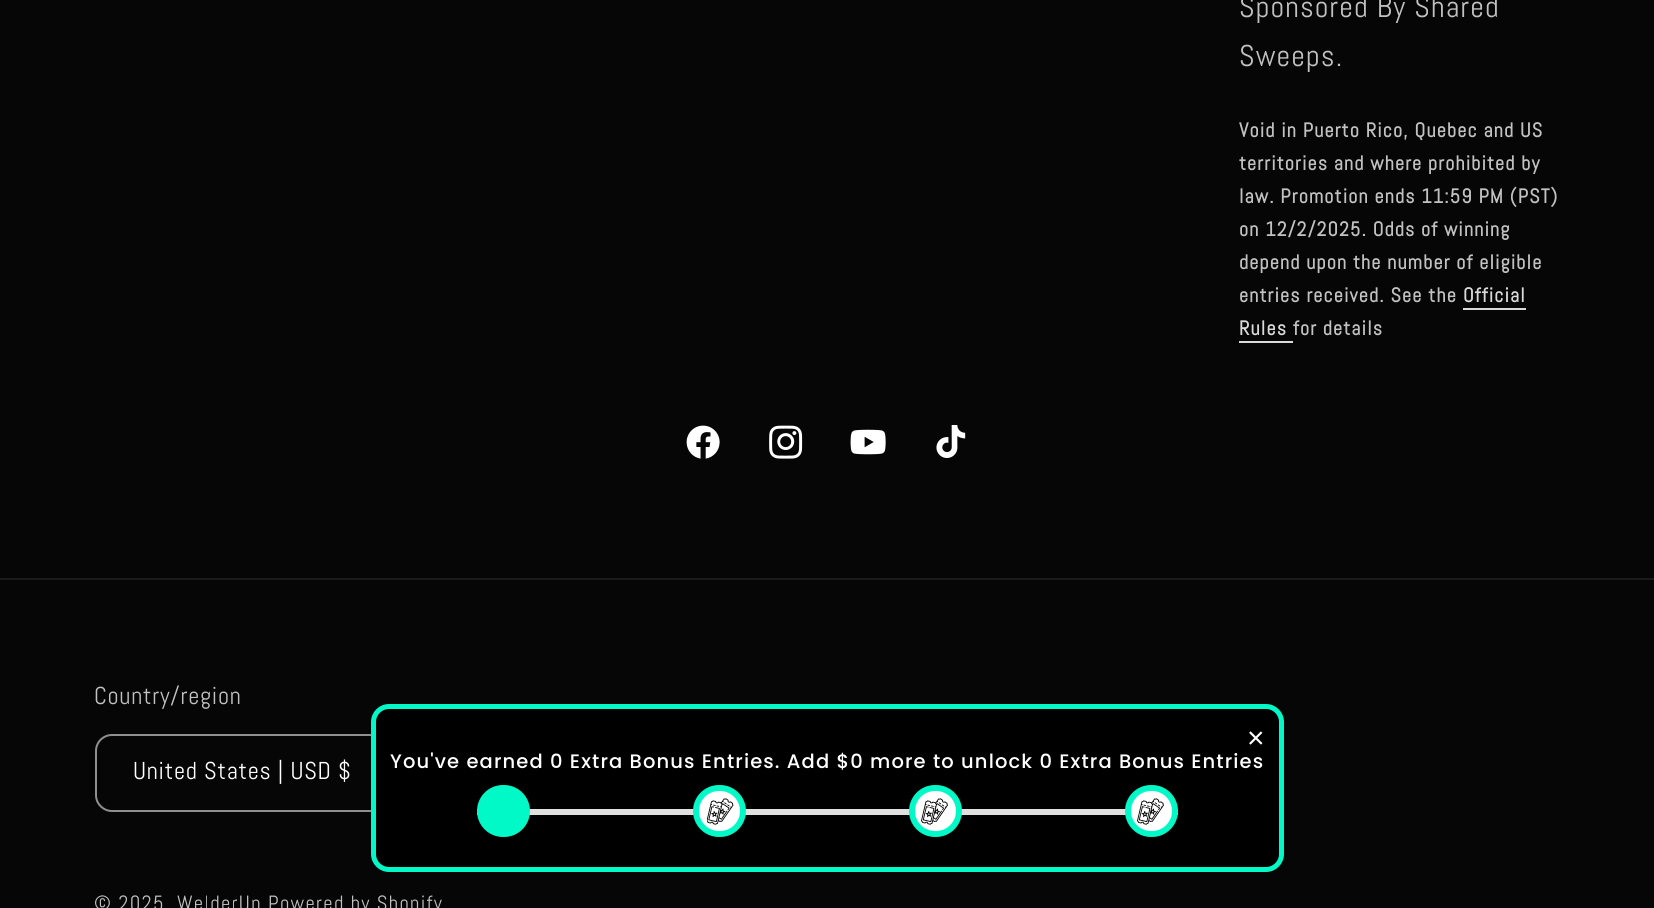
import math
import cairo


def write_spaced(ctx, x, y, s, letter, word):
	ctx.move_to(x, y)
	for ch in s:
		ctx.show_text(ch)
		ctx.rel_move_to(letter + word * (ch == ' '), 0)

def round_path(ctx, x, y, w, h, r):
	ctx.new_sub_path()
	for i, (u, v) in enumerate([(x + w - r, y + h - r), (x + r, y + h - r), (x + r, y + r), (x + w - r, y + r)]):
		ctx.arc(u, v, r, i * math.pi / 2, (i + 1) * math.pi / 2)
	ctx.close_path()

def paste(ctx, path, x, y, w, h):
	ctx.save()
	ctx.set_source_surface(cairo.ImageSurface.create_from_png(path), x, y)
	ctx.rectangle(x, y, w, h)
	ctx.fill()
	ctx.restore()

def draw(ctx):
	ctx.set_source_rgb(0.024, 0.024, 0.024)
	ctx.paint()
	ctx.select_font_face('Abel')
	ctx.set_font_size(30)
	ctx.set_source_rgb(0.757, 0.757, 0.757)
	write_spaced(ctx, 1239, 17, 'Sponsored By Shared', 1.12, 0)
	write_spaced(ctx, 1239, 66, 'Sweeps.', 1.12, 0)
	ctx.select_font_face('Abel', cairo.FONT_SLANT_NORMAL, cairo.FONT_WEIGHT_BOLD)
	ctx.set_font_size(20.1)
	for x, y, s in [
		(1239, 137, 'Void in Puerto Rico, Quebec and US'),
		(1239, 170, 'territories and where prohibited by'),
		(1239, 203, 'law. Promotion ends 11:59 PM (PST)'),
		(1239, 236, 'on 12/2/2025. Odds of winning'),
		(1239, 269, 'depend upon the number of eligible'),
		(1239, 302, 'entries received. See the'),
	]:
		write_spaced(ctx, x, y, s, 1.12, 0)
	ctx.set_source_rgb(0.855, 0.855, 0.855)
	write_spaced(ctx, 1463, 302, 'Official', 1.12, 0)
	ctx.rectangle(1463, 308, 63, 2)
	ctx.fill()
	write_spaced(ctx, 1239, 335, 'Rules', 1.12, 0)
	ctx.rectangle(1239, 341, 54, 2)
	ctx.fill()
	ctx.set_source_rgb(0.757, 0.757, 0.757)
	write_spaced(ctx, 1293, 335, 'for details', 1.12, 0)
	paste(ctx, 'media/1.png', 686, 425, 34, 34)
	paste(ctx, 'media/2.png', 769, 425, 34, 34)
	paste(ctx, 'media/3.png', 850, 429, 36, 26)
	paste(ctx, 'media/4.png', 936, 425, 30, 33)
	ctx.set_source_rgb(0.102, 0.102, 0.102)
	ctx.rectangle(0, 578, 1654, 2)
	ctx.fill()
	ctx.select_font_face('Abel')
	ctx.set_font_size(24.4)
	ctx.set_source_rgb(0.757, 0.757, 0.757)
	write_spaced(ctx, 94, 704, 'Country/region', 0.75, 0)
	round_path(ctx, 96, 735, 329, 76, 16)
	ctx.set_source_rgb(0.561, 0.561, 0.561)
	ctx.stroke()
	ctx.set_source_rgb(1, 1, 1)
	write_spaced(ctx, 133, 779, 'United States | USD $', 0.75, 0)
	ctx.set_font_size(20.6)
	ctx.set_source_rgb(0.757, 0.757, 0.757)
	for x, y, s in [
		(94, 910, '© 2025'),
		(177, 910, 'WelderUp'),
		(268, 910, 'Powered by Shopify'),
	]:
		write_spaced(ctx, x, y, s, 1.3, 0)
	ctx.set_source_rgb(0, 0, 0)
	round_path(ctx, 373.5, 706.5, 908, 163, 15.5)
	ctx.fill_preserve()
	ctx.set_source_rgb(0, 0.976, 0.78)
	ctx.set_line_width(5)
	ctx.stroke()
	ctx.select_font_face('Liberation Sans')
	ctx.set_font_size(30)
	ctx.set_source_rgb(1, 1, 1)
	ctx.move_to(1247, 748)
	ctx.show_text('×')
	ctx.select_font_face('Poppins Medium')
	ctx.set_font_size(19.5)
	write_spaced(ctx, 390, 768, 'You\'ve earned 0 Extra Bonus Entries. Add $0 more to unlock 0 Extra Bonus Entries', 1.12, 0)
	ctx.set_source_rgb(0.878, 0.878, 0.878)
	ctx.rectangle(477, 809, 701, 6)
	ctx.fill()
	ctx.set_source_rgb(0, 0.976, 0.78)
	round_path(ctx, 480, 788, 47, 46, 23)
	ctx.fill_preserve()
	ctx.set_line_width(6)
	ctx.stroke()
	ctx.set_source_rgb(1, 1, 1)
	round_path(ctx, 696, 788, 47, 46, 23)
	ctx.fill_preserve()
	ctx.set_source_rgb(0, 0.976, 0.78)
	ctx.stroke()
	paste(ctx, 'media/5.png', 707, 798, 27, 27)
	ctx.set_source_rgb(1, 1, 1)
	round_path(ctx, 912, 788, 47, 46, 23)
	ctx.fill_preserve()
	ctx.set_source_rgb(0, 0.976, 0.78)
	ctx.stroke()
	paste(ctx, 'media/6.png', 921, 798, 27, 27)
	ctx.set_source_rgb(1, 1, 1)
	round_path(ctx, 1128, 788, 47, 46, 23)
	ctx.fill_preserve()
	ctx.set_source_rgb(0, 0.976, 0.78)
	ctx.stroke()
	paste(ctx, 'media/6.png', 1137, 798, 27, 27)


surface = cairo.ImageSurface(cairo.FORMAT_RGB24, 1654, 908)
ctx = cairo.Context(surface)
options = cairo.FontOptions()
options.set_hint_metrics(cairo.HINT_METRICS_OFF)
options.set_hint_style(cairo.HINT_STYLE_NONE)
ctx.set_font_options(options)
ctx.set_miter_limit(4)
draw(ctx)
surface.write_to_png('image.png')
